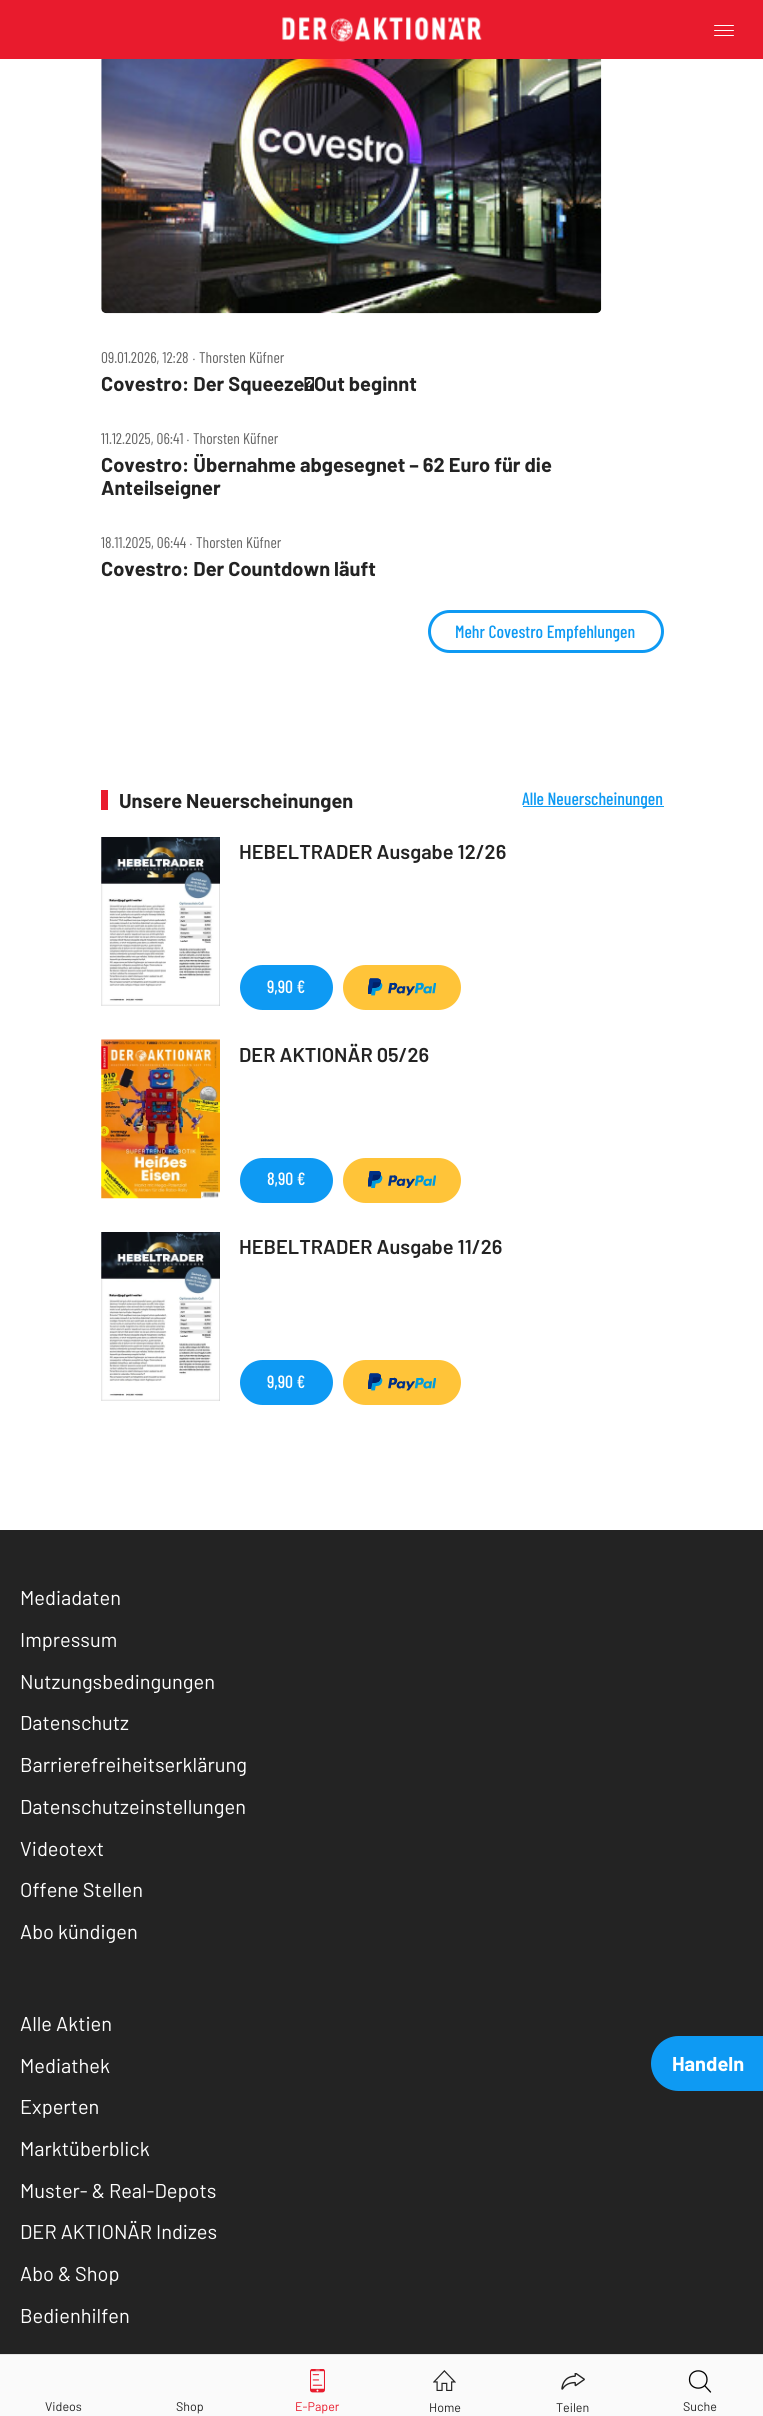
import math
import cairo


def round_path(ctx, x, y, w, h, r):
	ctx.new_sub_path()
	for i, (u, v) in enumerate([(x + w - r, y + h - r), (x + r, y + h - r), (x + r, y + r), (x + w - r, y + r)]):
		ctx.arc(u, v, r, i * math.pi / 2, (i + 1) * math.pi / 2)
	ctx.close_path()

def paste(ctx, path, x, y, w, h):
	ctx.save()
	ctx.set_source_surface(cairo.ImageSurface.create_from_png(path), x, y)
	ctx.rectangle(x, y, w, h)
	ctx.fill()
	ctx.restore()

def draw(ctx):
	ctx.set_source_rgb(1, 1, 1)
	ctx.paint()
	paste(ctx, 'media/1.png', 101, 59, 501, 255)
	ctx.select_font_face('Barlow Condensed')
	ctx.set_font_size(15.5)
	ctx.set_source_rgb(0.392, 0.392, 0.392)
	ctx.move_to(101, 363)
	ctx.show_text('09.01.2026, 12:28')
	ctx.select_font_face('Noto Sans Light')
	ctx.move_to(192, 363)
	ctx.show_text('‧')
	ctx.select_font_face('Barlow Condensed')
	ctx.move_to(199, 363)
	ctx.show_text('Thorsten Küfner')
	ctx.select_font_face('Barlow', cairo.FONT_SLANT_NORMAL, cairo.FONT_WEIGHT_BOLD)
	ctx.set_font_size(20)
	ctx.set_source_rgb(0.137, 0.137, 0.137)
	ctx.move_to(101, 391)
	ctx.show_text('Covestro: Der Squeeze‑Out beginnt')
	ctx.select_font_face('Barlow Condensed')
	ctx.set_font_size(15.5)
	ctx.set_source_rgb(0.392, 0.392, 0.392)
	ctx.move_to(101, 444)
	ctx.show_text('11.12.2025, 06:41')
	ctx.select_font_face('Noto Sans Light')
	ctx.move_to(186, 444)
	ctx.show_text('‧')
	ctx.select_font_face('Barlow Condensed')
	ctx.move_to(193, 444)
	ctx.show_text('Thorsten Küfner')
	ctx.save()
	ctx.rectangle(101, 454, 563, 45)
	ctx.clip()
	ctx.select_font_face('Barlow', cairo.FONT_SLANT_NORMAL, cairo.FONT_WEIGHT_BOLD)
	ctx.set_font_size(20)
	ctx.set_source_rgb(0.137, 0.137, 0.137)
	ctx.move_to(101, 472)
	ctx.show_text('Covestro: Übernahme abgesegnet – 62 Euro für die')
	ctx.restore()
	ctx.select_font_face('Barlow', cairo.FONT_SLANT_NORMAL, cairo.FONT_WEIGHT_BOLD)
	ctx.set_font_size(20)
	ctx.set_source_rgb(0.137, 0.137, 0.137)
	ctx.move_to(101, 495)
	ctx.show_text('Anteilseigner')
	ctx.select_font_face('Barlow Condensed')
	ctx.set_font_size(15.5)
	ctx.set_source_rgb(0.392, 0.392, 0.392)
	ctx.move_to(101, 548)
	ctx.show_text('18.11.2025, 06:44')
	ctx.select_font_face('Noto Sans Light')
	ctx.move_to(189, 548)
	ctx.show_text('‧')
	ctx.select_font_face('Barlow Condensed')
	ctx.move_to(196, 548)
	ctx.show_text('Thorsten Küfner')
	ctx.select_font_face('Barlow', cairo.FONT_SLANT_NORMAL, cairo.FONT_WEIGHT_BOLD)
	ctx.set_font_size(20)
	ctx.set_source_rgb(0.137, 0.137, 0.137)
	ctx.move_to(101, 576)
	ctx.show_text('Covestro: Der Countdown läuft')
	round_path(ctx, 429.5, 611.5, 233, 40, 20)
	ctx.set_source_rgb(0.055, 0.604, 0.953)
	ctx.set_line_width(3)
	ctx.stroke()
	ctx.select_font_face('Barlow Condensed Medium')
	ctx.set_font_size(17.75)
	ctx.move_to(455, 638)
	ctx.show_text('Mehr Covestro Empfehlungen')
	ctx.set_source_rgb(0.914, 0.106, 0.176)
	ctx.rectangle(101, 790, 7, 20)
	ctx.fill()
	ctx.select_font_face('Barlow', cairo.FONT_SLANT_NORMAL, cairo.FONT_WEIGHT_BOLD)
	ctx.set_font_size(20)
	ctx.set_source_rgb(0.137, 0.137, 0.137)
	ctx.move_to(119, 808)
	ctx.show_text('Unsere Neuerscheinungen')
	ctx.set_source_rgb(0.055, 0.604, 0.953)
	ctx.rectangle(523, 806, 141, 1)
	ctx.fill()
	ctx.select_font_face('Barlow Condensed Medium')
	ctx.set_font_size(17.75)
	ctx.move_to(522, 805)
	ctx.show_text('Alle Neuerscheinungen')
	paste(ctx, 'media/2.png', 101, 837, 119, 169)
	ctx.select_font_face('Barlow SemiBold')
	ctx.set_font_size(20)
	ctx.set_source_rgb(0.137, 0.137, 0.137)
	ctx.move_to(239, 859)
	ctx.show_text('HEBELTRADER Ausgabe 12/26')
	ctx.set_source_rgb(0.055, 0.604, 0.953)
	round_path(ctx, 241.5, 966.5, 90, 42, 21)
	ctx.fill_preserve()
	ctx.stroke()
	ctx.select_font_face('Barlow Condensed Medium')
	ctx.set_font_size(17.75)
	ctx.set_source_rgb(1, 1, 1)
	ctx.move_to(267, 993)
	ctx.show_text('9,90 €')
	ctx.set_source_rgb(1, 0.769, 0.224)
	round_path(ctx, 343, 965, 118, 45, 22.5)
	ctx.fill()
	paste(ctx, 'media/3.png', 368, 978, 68, 18)
	paste(ctx, 'media/4.png', 101, 1039, 119, 160)
	ctx.select_font_face('Barlow SemiBold')
	ctx.set_font_size(20)
	ctx.set_source_rgb(0.137, 0.137, 0.137)
	ctx.move_to(239, 1062)
	ctx.show_text('DER AKTIONÄR 05/26')
	ctx.set_source_rgb(0.055, 0.604, 0.953)
	round_path(ctx, 241.5, 1159.5, 90, 42, 21)
	ctx.fill_preserve()
	ctx.stroke()
	ctx.select_font_face('Barlow Condensed Medium')
	ctx.set_font_size(17.75)
	ctx.set_source_rgb(1, 1, 1)
	ctx.move_to(267, 1185)
	ctx.show_text('8,90 €')
	ctx.set_source_rgb(1, 0.769, 0.224)
	round_path(ctx, 343, 1158, 118, 45, 22.5)
	ctx.fill()
	paste(ctx, 'media/5.png', 368, 1171, 68, 17)
	paste(ctx, 'media/2.png', 101, 1232, 119, 169)
	ctx.select_font_face('Barlow SemiBold')
	ctx.set_font_size(20)
	ctx.set_source_rgb(0.137, 0.137, 0.137)
	ctx.move_to(239, 1254)
	ctx.show_text('HEBELTRADER Ausgabe 11/26')
	ctx.set_source_rgb(0.055, 0.604, 0.953)
	round_path(ctx, 241.5, 1361.5, 90, 42, 21)
	ctx.fill_preserve()
	ctx.stroke()
	ctx.select_font_face('Barlow Condensed Medium')
	ctx.set_font_size(17.75)
	ctx.set_source_rgb(1, 1, 1)
	ctx.move_to(267, 1388)
	ctx.show_text('9,90 €')
	ctx.set_source_rgb(1, 0.769, 0.224)
	round_path(ctx, 343, 1360, 118, 45, 22.5)
	ctx.fill()
	paste(ctx, 'media/3.png', 368, 1373, 68, 18)
	ctx.set_source_rgb(0.137, 0.137, 0.137)
	ctx.rectangle(0, 1530, 763, 824)
	ctx.fill()
	ctx.set_source_rgb(0.055, 0.604, 0.953)
	ctx.new_path()
	ctx.move_to(678.5, 2036)
	ctx.line_to(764, 2036)
	ctx.line_to(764, 2091)
	ctx.line_to(678.5, 2091)
	ctx.curve_to(663.5, 2091, 651, 2078.5, 651, 2063.5)
	ctx.curve_to(651, 2048.5, 663.5, 2036, 678.5, 2036)
	ctx.close_path()
	ctx.fill()
	ctx.select_font_face('Barlow', cairo.FONT_SLANT_NORMAL, cairo.FONT_WEIGHT_BOLD)
	ctx.set_font_size(20)
	ctx.set_source_rgb(1, 1, 1)
	ctx.move_to(672, 2071)
	ctx.show_text('Handeln')
	ctx.select_font_face('Barlow')
	for x, y, s in [
		(20, 1605, 'Mediadaten'),
		(20, 1647, 'Impressum'),
		(20, 1689, 'Nutzungsbedingungen'),
		(20, 1730, 'Datenschutz'),
		(20, 1772, 'Barrierefreiheitserklärung'),
		(20, 1814, 'Datenschutzeinstellungen'),
		(20, 1856, 'Videotext'),
		(20, 1897, 'Offene Stellen'),
		(20, 1939, 'Abo kündigen'),
		(20, 2031, 'Alle Aktien'),
		(20, 2073, 'Mediathek'),
		(20, 2114, 'Experten'),
		(20, 2156, 'Marktüberblick'),
		(20, 2198, 'Muster- & Real-Depots'),
		(20, 2239, 'DER AKTIONÄR Indizes'),
		(20, 2281, 'Abo & Shop'),
		(20, 2323, 'Bedienhilfen'),
	]:
		ctx.move_to(x, y)
		ctx.show_text(s)
	ctx.set_source_rgb(0.914, 0.106, 0.176)
	ctx.rectangle(0, 0, 763, 59)
	ctx.fill()
	paste(ctx, 'media/6.png', 282, 17, 200, 25)
	ctx.set_source_rgb(0.98, 0.98, 0.98)
	ctx.rectangle(0, 2355, 763, 61)
	ctx.fill()
	ctx.set_source_rgb(0.902, 0.902, 0.902)
	ctx.rectangle(0, 2354, 763, 1)
	ctx.fill()
	ctx.set_source_rgb(1, 1, 1)
	round_path(ctx, 714, 30, 20, 1, 0.5)
	ctx.fill()
	round_path(ctx, 714, 25, 20, 1, 0.5)
	ctx.fill()
	round_path(ctx, 714, 35, 20, 1, 0.5)
	ctx.fill()
	ctx.set_font_size(12.5)
	ctx.set_source_rgb(0.137, 0.137, 0.137)
	ctx.move_to(45, 2411)
	ctx.show_text('Videos')
	ctx.move_to(176, 2411)
	ctx.show_text('Shop')
	paste(ctx, 'media/7.png', 310, 2369, 15, 24)
	ctx.set_source_rgb(0.914, 0.106, 0.176)
	ctx.move_to(295, 2411)
	ctx.show_text('E-Paper')
	paste(ctx, 'media/8.png', 433, 2370, 23, 21)
	ctx.set_source_rgb(0.137, 0.137, 0.137)
	ctx.move_to(429, 2412)
	ctx.show_text('Home')
	paste(ctx, 'media/9.png', 561, 2373, 24, 17)
	ctx.move_to(556, 2412)
	ctx.show_text('Teilen')
	ctx.new_path()
	ctx.move_to(707, 2379.5)
	ctx.curve_to(707, 2391, 689.5, 2391, 689.5, 2379.5)
	ctx.curve_to(689.5, 2368, 707, 2368, 707, 2379.5)
	ctx.close_path()
	ctx.move_to(705, 2386)
	ctx.line_to(710.5, 2392)
	ctx.set_source_rgb(0, 0, 0)
	ctx.set_line_width(1.3)
	ctx.set_line_cap(cairo.LINE_CAP_ROUND)
	ctx.set_line_join(cairo.LINE_JOIN_ROUND)
	ctx.stroke()
	ctx.set_source_rgb(0.137, 0.137, 0.137)
	ctx.move_to(683, 2411)
	ctx.show_text('Suche')


surface = cairo.ImageSurface(cairo.FORMAT_RGB24, 763, 2416)
ctx = cairo.Context(surface)
options = cairo.FontOptions()
options.set_hint_metrics(cairo.HINT_METRICS_OFF)
options.set_hint_style(cairo.HINT_STYLE_NONE)
ctx.set_font_options(options)
ctx.set_miter_limit(4)
draw(ctx)
surface.write_to_png('image.png')
